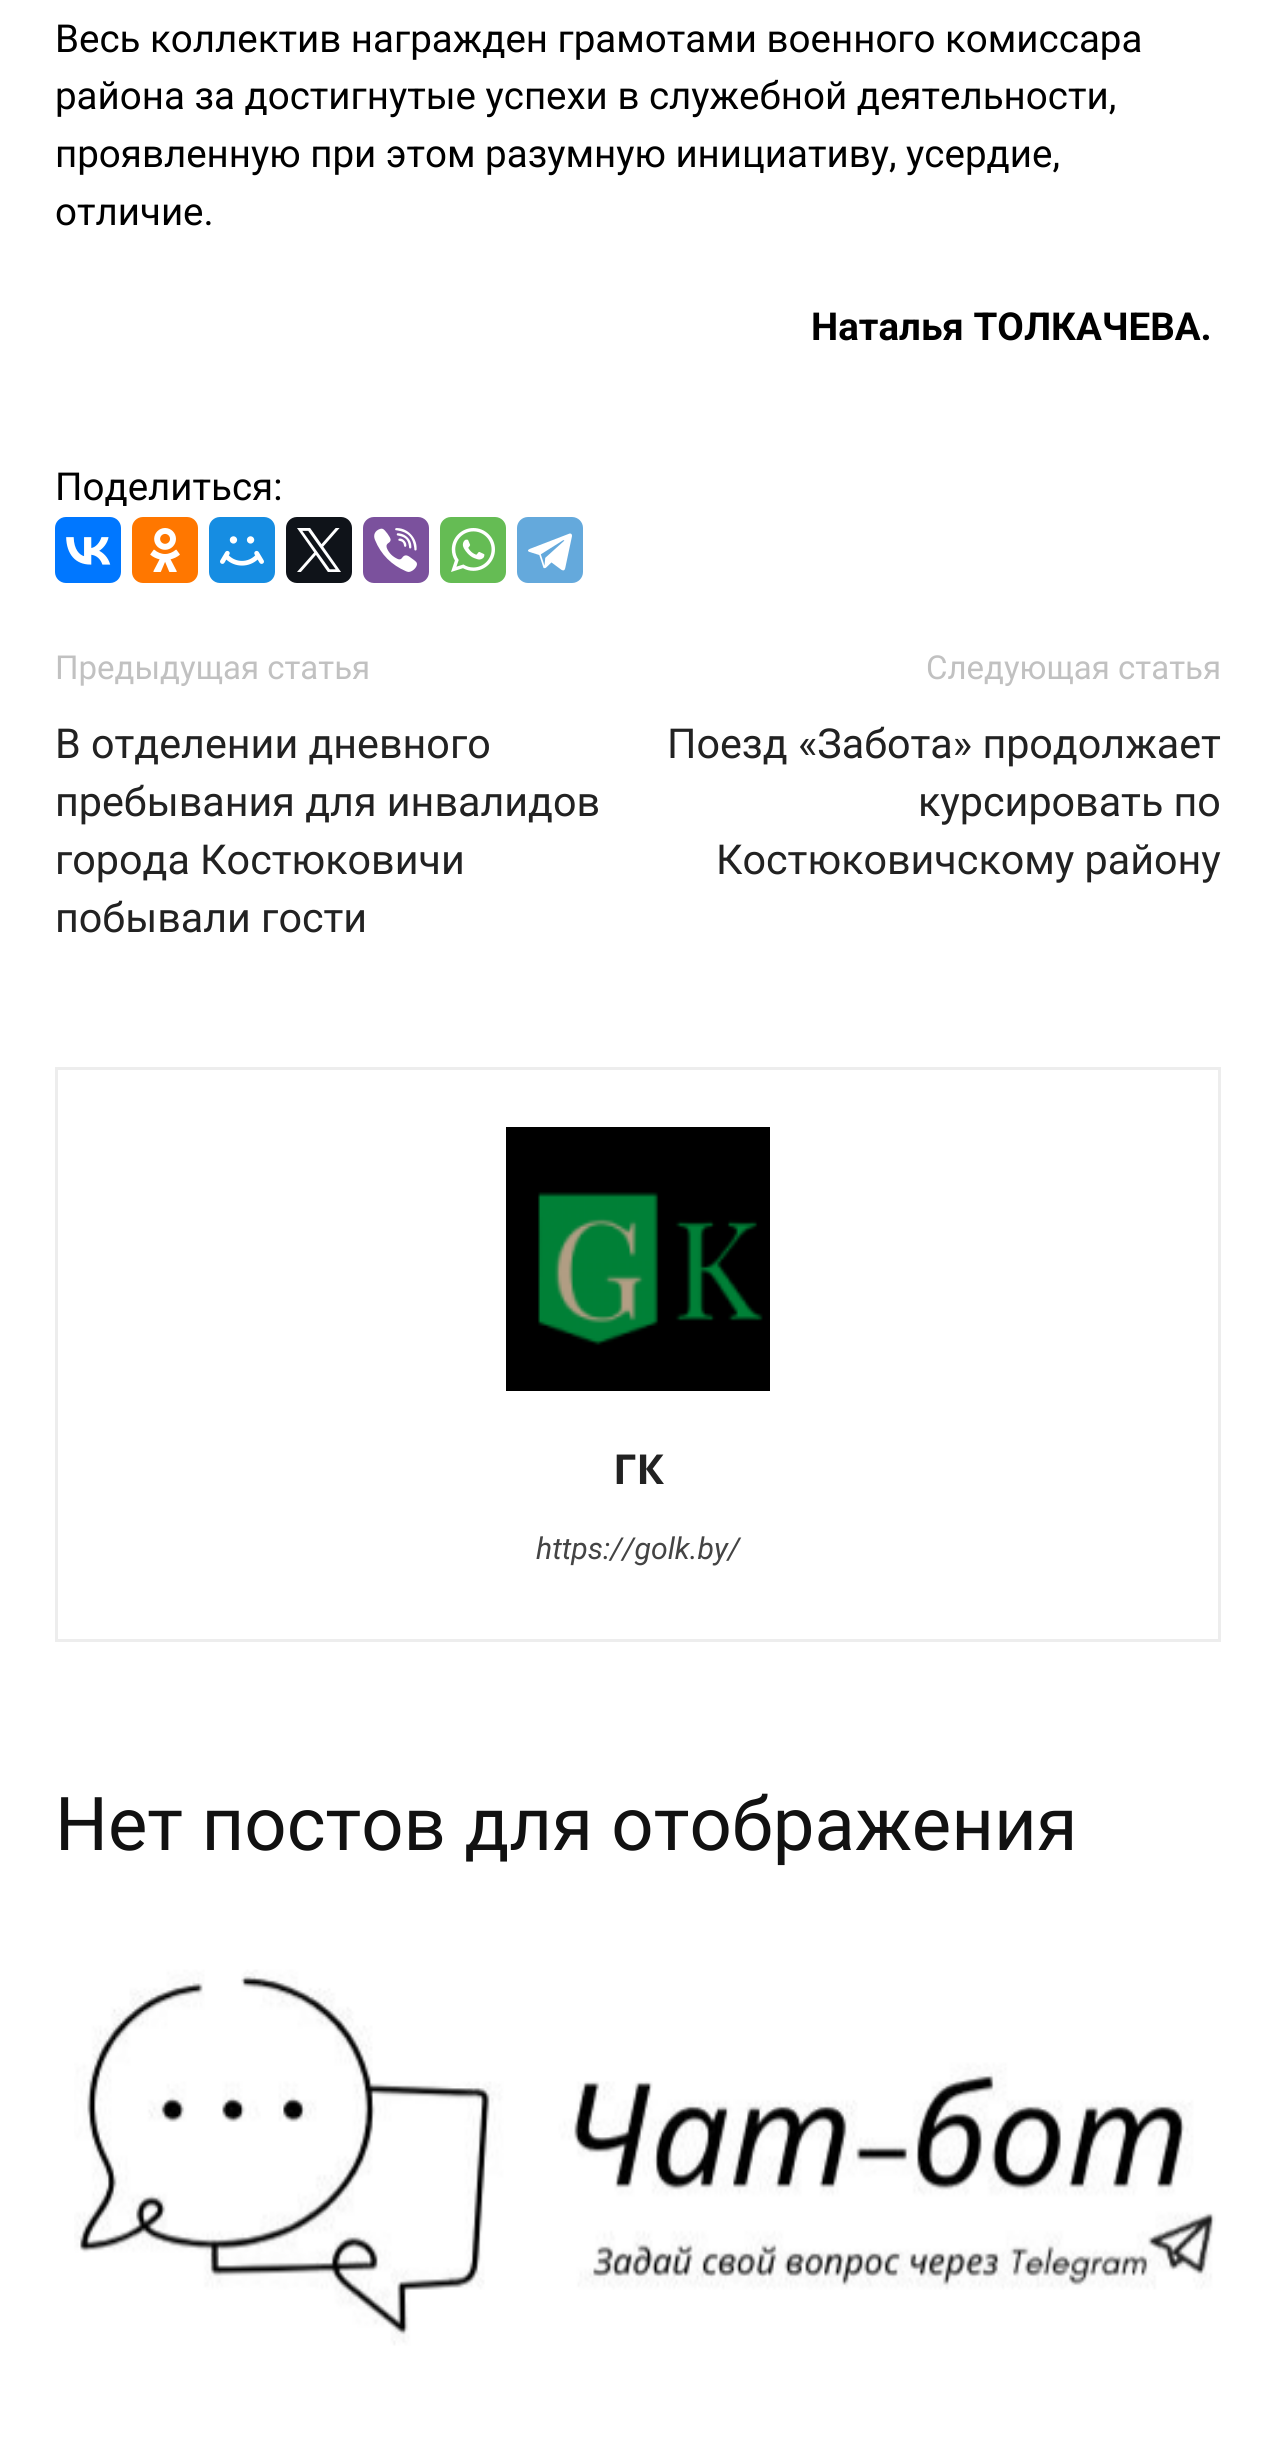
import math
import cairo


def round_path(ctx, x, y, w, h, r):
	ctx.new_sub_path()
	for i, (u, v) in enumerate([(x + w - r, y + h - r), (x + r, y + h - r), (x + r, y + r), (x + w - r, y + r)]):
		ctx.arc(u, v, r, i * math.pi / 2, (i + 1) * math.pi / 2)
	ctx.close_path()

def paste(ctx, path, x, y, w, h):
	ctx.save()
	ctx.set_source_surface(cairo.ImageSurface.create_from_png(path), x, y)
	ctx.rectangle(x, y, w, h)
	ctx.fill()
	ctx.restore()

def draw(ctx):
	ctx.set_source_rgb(1, 1, 1)
	ctx.paint()
	ctx.select_font_face('Roboto')
	ctx.set_font_size(38.5)
	ctx.set_source_rgb(0, 0, 0)
	for x, y, s in [
		(55, 52, 'Весь коллектив награжден грамотами военного комиссара'),
		(55, 109, 'района за достигнутые успехи в служебной деятельности,'),
		(55, 167, 'проявленную при этом разумную инициативу, усердие,'),
		(55, 225, 'отличие.'),
	]:
		ctx.move_to(x, y)
		ctx.show_text(s)
	ctx.select_font_face('Roboto', cairo.FONT_SLANT_NORMAL, cairo.FONT_WEIGHT_BOLD)
	ctx.move_to(811, 340)
	ctx.show_text('Наталья ТОЛКАЧЕВА.')
	ctx.select_font_face('Roboto')
	ctx.move_to(55, 500)
	ctx.show_text('Поделиться:')
	ctx.set_source_rgb(0, 0.467, 1)
	round_path(ctx, 55, 517, 66, 66, 11)
	ctx.fill()
	paste(ctx, 'media/1.png', 66, 537, 45, 28)
	ctx.set_source_rgb(1, 0.467, 0)
	round_path(ctx, 132, 517, 66, 66, 11)
	ctx.fill()
	paste(ctx, 'media/2.png', 150, 528, 30, 44)
	ctx.set_source_rgb(0.086, 0.553, 0.886)
	round_path(ctx, 209, 517, 66, 66, 11)
	ctx.fill()
	paste(ctx, 'media/3.png', 220, 536, 44, 30)
	ctx.set_source_rgb(0.059, 0.078, 0.098)
	round_path(ctx, 286, 517, 66, 66, 11)
	ctx.fill()
	paste(ctx, 'media/4.png', 297, 528, 44, 44)
	ctx.set_source_rgb(0.482, 0.318, 0.616)
	round_path(ctx, 363, 517, 66, 66, 11)
	ctx.fill()
	paste(ctx, 'media/5.png', 374, 528, 43, 44)
	ctx.set_source_rgb(0.396, 0.737, 0.329)
	round_path(ctx, 440, 517, 66, 66, 11)
	ctx.fill()
	paste(ctx, 'media/6.png', 451, 528, 44, 44)
	ctx.set_source_rgb(0.392, 0.663, 0.863)
	round_path(ctx, 517, 517, 66, 66, 11)
	ctx.fill()
	paste(ctx, 'media/7.png', 528, 533, 44, 38)
	ctx.set_font_size(33)
	ctx.set_source_rgb(0.757, 0.757, 0.757)
	ctx.move_to(55, 679)
	ctx.show_text('Предыдущая статья')
	ctx.set_font_size(41.25)
	ctx.set_source_rgb(0.133, 0.133, 0.133)
	for x, y, s in [
		(55, 758, 'В отделении дневного'),
		(55, 816, 'пребывания для инвалидов'),
		(55, 874, 'города Костюковичи'),
		(55, 932, 'побывали гости'),
	]:
		ctx.move_to(x, y)
		ctx.show_text(s)
	ctx.set_font_size(33)
	ctx.set_source_rgb(0.757, 0.757, 0.757)
	ctx.move_to(926, 679)
	ctx.show_text('Следующая статья')
	ctx.set_font_size(41.25)
	ctx.set_source_rgb(0.133, 0.133, 0.133)
	for x, y, s in [
		(667, 758, 'Поезд «Забота» продолжает'),
		(918, 816, 'курсировать по'),
		(716, 874, 'Костюковичскому району'),
	]:
		ctx.move_to(x, y)
		ctx.show_text(s)
	ctx.rectangle(56.5, 1068.5, 1163, 572)
	ctx.set_source_rgb(0.929, 0.929, 0.929)
	ctx.set_line_width(3)
	ctx.stroke()
	paste(ctx, 'media/8.png', 506, 1127, 264, 264)
	ctx.select_font_face('Open Sans', cairo.FONT_SLANT_NORMAL, cairo.FONT_WEIGHT_BOLD)
	ctx.set_source_rgb(0.133, 0.133, 0.133)
	ctx.move_to(613, 1484)
	ctx.show_text('ГК')
	ctx.select_font_face('Roboto', cairo.FONT_SLANT_ITALIC)
	ctx.set_font_size(30.25)
	ctx.set_source_rgb(0.267, 0.267, 0.267)
	ctx.move_to(536, 1559)
	ctx.show_text('https://golk.by/')
	ctx.select_font_face('Roboto')
	ctx.set_font_size(74.25)
	ctx.set_source_rgb(0.067, 0.067, 0.067)
	ctx.move_to(55, 1850)
	ctx.show_text('Нет постов для отображения')
	paste(ctx, 'media/9.png', 74, 1969, 1142, 377)


surface = cairo.ImageSurface(cairo.FORMAT_RGB24, 1274, 2460)
ctx = cairo.Context(surface)
options = cairo.FontOptions()
options.set_hint_metrics(cairo.HINT_METRICS_OFF)
options.set_hint_style(cairo.HINT_STYLE_NONE)
ctx.set_font_options(options)
ctx.set_miter_limit(4)
draw(ctx)
surface.write_to_png('image.png')
